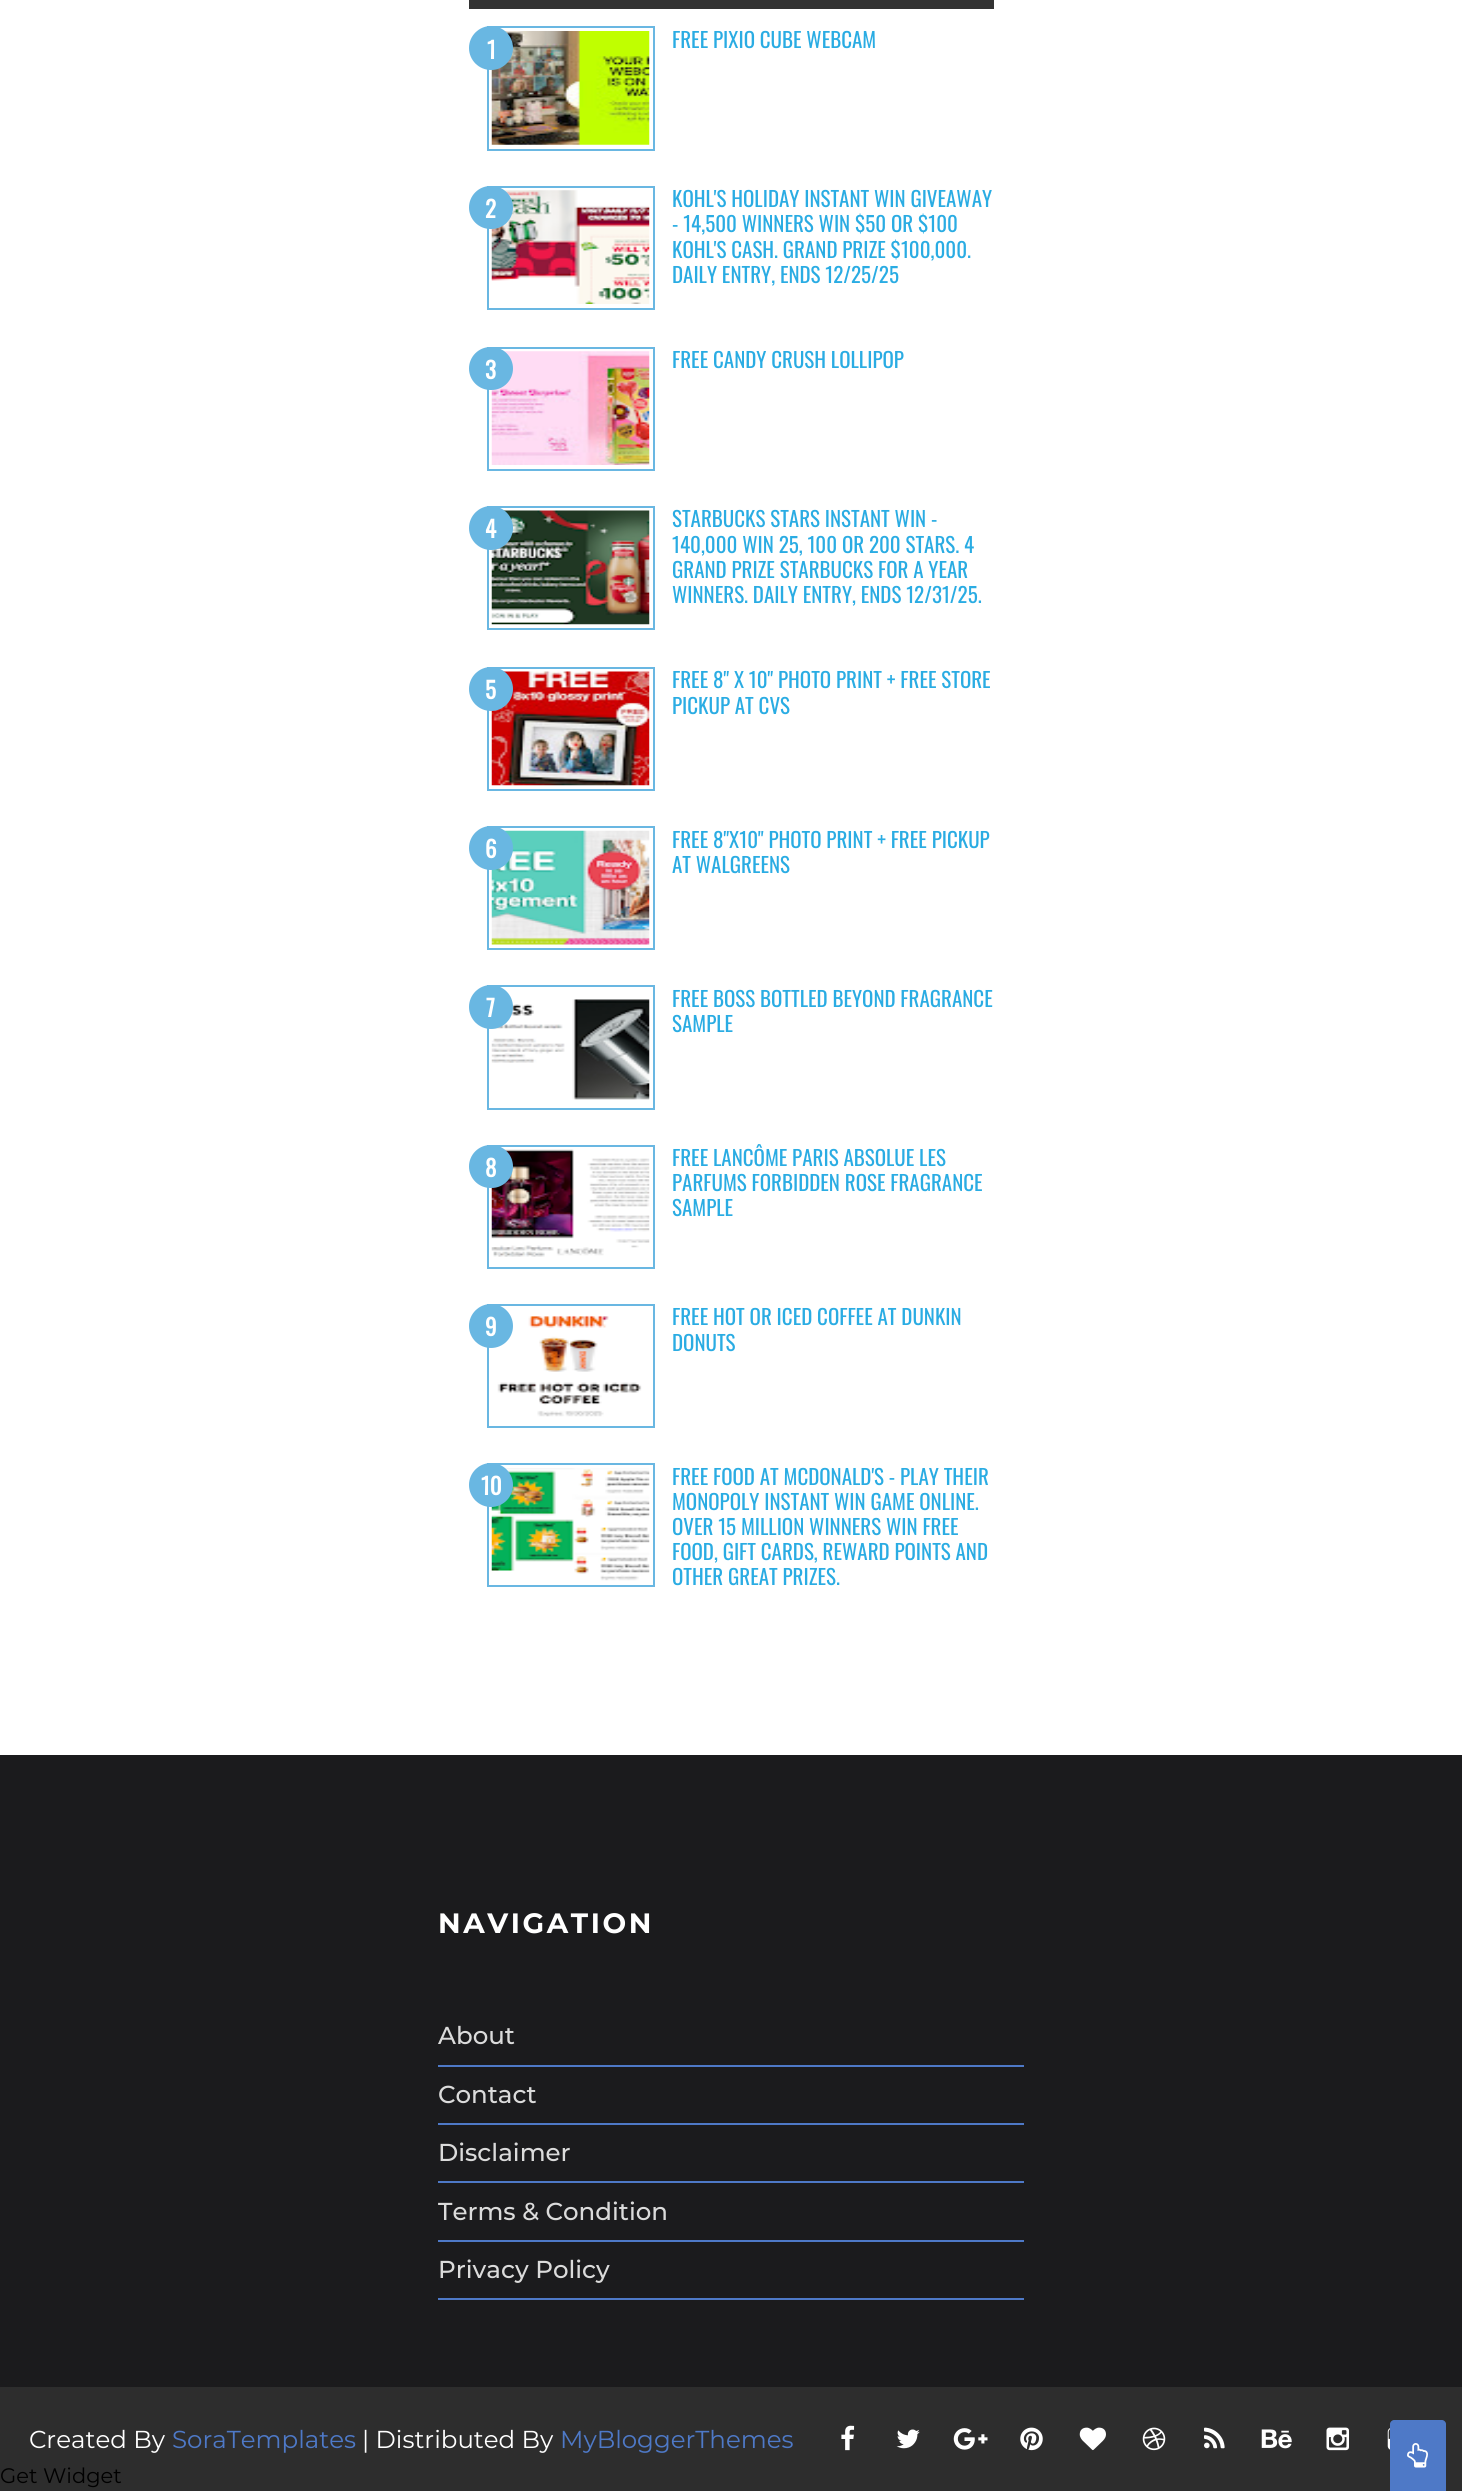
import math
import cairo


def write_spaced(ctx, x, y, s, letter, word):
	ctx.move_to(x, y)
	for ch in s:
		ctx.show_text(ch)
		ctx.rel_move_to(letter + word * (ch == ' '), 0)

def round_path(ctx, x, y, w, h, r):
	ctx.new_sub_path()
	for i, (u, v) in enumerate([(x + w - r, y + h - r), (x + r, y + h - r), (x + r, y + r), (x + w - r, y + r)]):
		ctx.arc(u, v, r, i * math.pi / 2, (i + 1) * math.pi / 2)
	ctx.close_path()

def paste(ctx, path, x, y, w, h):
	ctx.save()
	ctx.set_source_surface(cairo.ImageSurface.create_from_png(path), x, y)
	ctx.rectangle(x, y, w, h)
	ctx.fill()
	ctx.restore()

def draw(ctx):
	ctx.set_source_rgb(1, 1, 1)
	ctx.paint()
	ctx.set_source_rgb(0.2, 0.2, 0.2)
	ctx.rectangle(469, 0, 525, 9)
	ctx.fill()
	ctx.rectangle(488, 27, 166, 123)
	ctx.set_source_rgb(0.412, 0.718, 0.886)
	ctx.stroke()
	paste(ctx, 'media/1.png', 491, 31, 159, 114)
	ctx.select_font_face('Oswald')
	ctx.set_font_size(21)
	ctx.set_source_rgb(0.165, 0.675, 0.89)
	ctx.move_to(672, 48)
	ctx.show_text('FREE PIXIO CUBE WEBCAM')
	ctx.set_source_rgb(0.412, 0.718, 0.886)
	ctx.new_path()
	ctx.arc(491, 48, 22, 0, 2 * math.pi)
	ctx.fill()
	ctx.select_font_face('Oswald', cairo.FONT_SLANT_NORMAL, cairo.FONT_WEIGHT_BOLD)
	ctx.set_font_size(23)
	ctx.set_source_rgb(1, 1, 1)
	ctx.move_to(487, 59)
	ctx.show_text('1')
	ctx.rectangle(488, 187, 166, 122)
	ctx.set_source_rgb(0.412, 0.718, 0.886)
	ctx.stroke()
	paste(ctx, 'media/2.png', 491, 190, 159, 114)
	ctx.select_font_face('Oswald')
	ctx.set_font_size(21)
	ctx.set_source_rgb(0.165, 0.675, 0.89)
	for x, y, s in [
		(672, 207, 'KOHL\'S HOLIDAY INSTANT WIN GIVEAWAY'),
		(672, 232, '- 14,500 WINNERS WIN $50 OR $100'),
		(672, 258, 'KOHL\'S CASH. GRAND PRIZE $100,000.'),
		(672, 283, 'DAILY ENTRY, ENDS 12/25/25'),
	]:
		ctx.move_to(x, y)
		ctx.show_text(s)
	ctx.set_source_rgb(0.412, 0.718, 0.886)
	round_path(ctx, 469, 186, 44, 43, 21.5)
	ctx.fill()
	ctx.select_font_face('Oswald', cairo.FONT_SLANT_NORMAL, cairo.FONT_WEIGHT_BOLD)
	ctx.set_font_size(23)
	ctx.set_source_rgb(1, 1, 1)
	ctx.move_to(485, 218)
	ctx.show_text('2')
	ctx.rectangle(488, 348, 166, 122)
	ctx.set_source_rgb(0.412, 0.718, 0.886)
	ctx.stroke()
	paste(ctx, 'media/3.png', 491, 351, 159, 114)
	ctx.select_font_face('Oswald')
	ctx.set_font_size(21)
	ctx.set_source_rgb(0.165, 0.675, 0.89)
	ctx.move_to(672, 368)
	ctx.show_text('FREE CANDY CRUSH LOLLIPOP')
	ctx.set_source_rgb(0.412, 0.718, 0.886)
	round_path(ctx, 469, 347, 44, 43, 21.5)
	ctx.fill()
	ctx.select_font_face('Oswald', cairo.FONT_SLANT_NORMAL, cairo.FONT_WEIGHT_BOLD)
	ctx.set_font_size(23)
	ctx.set_source_rgb(1, 1, 1)
	ctx.move_to(485, 379)
	ctx.show_text('3')
	ctx.rectangle(488, 507, 166, 122)
	ctx.set_source_rgb(0.412, 0.718, 0.886)
	ctx.stroke()
	paste(ctx, 'media/4.png', 491, 510, 159, 115)
	ctx.select_font_face('Oswald')
	ctx.set_font_size(21)
	ctx.set_source_rgb(0.165, 0.675, 0.89)
	for x, y, s in [
		(672, 527, 'STARBUCKS STARS INSTANT WIN -'),
		(672, 553, '140,000 WIN 25, 100 OR 200 STARS. 4'),
		(672, 578, 'GRAND PRIZE STARBUCKS FOR A YEAR'),
		(672, 603, 'WINNERS. DAILY ENTRY, ENDS 12/31/25.'),
	]:
		ctx.move_to(x, y)
		ctx.show_text(s)
	ctx.set_source_rgb(0.412, 0.718, 0.886)
	ctx.new_path()
	ctx.arc(491, 528, 22, 0, 2 * math.pi)
	ctx.fill()
	ctx.select_font_face('Oswald', cairo.FONT_SLANT_NORMAL, cairo.FONT_WEIGHT_BOLD)
	ctx.set_font_size(23)
	ctx.set_source_rgb(1, 1, 1)
	ctx.move_to(485, 538)
	ctx.show_text('4')
	ctx.rectangle(488, 668, 166, 122)
	ctx.set_source_rgb(0.412, 0.718, 0.886)
	ctx.stroke()
	paste(ctx, 'media/5.png', 491, 671, 159, 115)
	ctx.select_font_face('Oswald')
	ctx.set_font_size(21)
	ctx.set_source_rgb(0.165, 0.675, 0.89)
	ctx.move_to(672, 688)
	ctx.show_text('FREE 8" X 10" PHOTO PRINT + FREE STORE')
	ctx.move_to(672, 714)
	ctx.show_text('PICKUP AT CVS')
	ctx.set_source_rgb(0.412, 0.718, 0.886)
	ctx.new_path()
	ctx.arc(491, 689, 22, 0, 2 * math.pi)
	ctx.fill()
	ctx.select_font_face('Oswald', cairo.FONT_SLANT_NORMAL, cairo.FONT_WEIGHT_BOLD)
	ctx.set_font_size(23)
	ctx.set_source_rgb(1, 1, 1)
	ctx.move_to(485, 699)
	ctx.show_text('5')
	ctx.rectangle(488, 827, 166, 122)
	ctx.set_source_rgb(0.412, 0.718, 0.886)
	ctx.stroke()
	paste(ctx, 'media/6.png', 491, 830, 159, 115)
	ctx.select_font_face('Oswald')
	ctx.set_font_size(21)
	ctx.set_source_rgb(0.165, 0.675, 0.89)
	ctx.move_to(672, 848)
	ctx.show_text('FREE 8"X10" PHOTO PRINT + FREE PICKUP')
	ctx.move_to(672, 873)
	ctx.show_text('AT WALGREENS')
	ctx.set_source_rgb(0.412, 0.718, 0.886)
	ctx.new_path()
	ctx.arc(491, 848, 22, 0, 2 * math.pi)
	ctx.fill()
	ctx.select_font_face('Oswald', cairo.FONT_SLANT_NORMAL, cairo.FONT_WEIGHT_BOLD)
	ctx.set_font_size(23)
	ctx.set_source_rgb(1, 1, 1)
	ctx.move_to(485, 858)
	ctx.show_text('6')
	ctx.rectangle(488, 986, 166, 123)
	ctx.set_source_rgb(0.412, 0.718, 0.886)
	ctx.stroke()
	paste(ctx, 'media/7.png', 491, 999, 159, 101)
	ctx.select_font_face('Oswald')
	ctx.set_font_size(21)
	ctx.set_source_rgb(0.165, 0.675, 0.89)
	ctx.move_to(672, 1007)
	ctx.show_text('FREE BOSS BOTTLED BEYOND FRAGRANCE')
	ctx.move_to(672, 1032)
	ctx.show_text('SAMPLE')
	ctx.set_source_rgb(0.412, 0.718, 0.886)
	ctx.new_path()
	ctx.arc(491, 1007, 22, 0, 2 * math.pi)
	ctx.fill()
	ctx.select_font_face('Oswald', cairo.FONT_SLANT_NORMAL, cairo.FONT_WEIGHT_BOLD)
	ctx.set_font_size(23)
	ctx.set_source_rgb(1, 1, 1)
	ctx.move_to(486, 1017)
	ctx.show_text('7')
	ctx.rectangle(488, 1146, 166, 122)
	ctx.set_source_rgb(0.412, 0.718, 0.886)
	ctx.stroke()
	paste(ctx, 'media/8.png', 491, 1149, 159, 108)
	ctx.select_font_face('Oswald')
	ctx.set_font_size(21)
	ctx.set_source_rgb(0.165, 0.675, 0.89)
	for x, y, s in [
		(672, 1166, 'FREE LANCÔME PARIS ABSOLUE LES'),
		(672, 1191, 'PARFUMS FORBIDDEN ROSE FRAGRANCE'),
		(672, 1216, 'SAMPLE'),
	]:
		ctx.move_to(x, y)
		ctx.show_text(s)
	ctx.set_source_rgb(0.412, 0.718, 0.886)
	round_path(ctx, 469, 1145, 44, 43, 21.5)
	ctx.fill()
	ctx.select_font_face('Oswald', cairo.FONT_SLANT_NORMAL, cairo.FONT_WEIGHT_BOLD)
	ctx.set_font_size(23)
	ctx.set_source_rgb(1, 1, 1)
	ctx.move_to(485, 1177)
	ctx.show_text('8')
	ctx.rectangle(488, 1305, 166, 122)
	ctx.set_source_rgb(0.412, 0.718, 0.886)
	ctx.stroke()
	paste(ctx, 'media/9.png', 497, 1315, 145, 102)
	ctx.select_font_face('Oswald')
	ctx.set_font_size(21)
	ctx.set_source_rgb(0.165, 0.675, 0.89)
	ctx.move_to(672, 1325)
	ctx.show_text('FREE HOT OR ICED COFFEE AT DUNKIN')
	ctx.move_to(672, 1351)
	ctx.show_text('DONUTS')
	ctx.set_source_rgb(0.412, 0.718, 0.886)
	ctx.new_path()
	ctx.arc(491, 1326, 22, 0, 2 * math.pi)
	ctx.fill()
	ctx.select_font_face('Oswald', cairo.FONT_SLANT_NORMAL, cairo.FONT_WEIGHT_BOLD)
	ctx.set_font_size(23)
	ctx.set_source_rgb(1, 1, 1)
	ctx.move_to(485, 1336)
	ctx.show_text('9')
	ctx.rectangle(488, 1464, 166, 122)
	ctx.set_source_rgb(0.412, 0.718, 0.886)
	ctx.stroke()
	paste(ctx, 'media/10.png', 491, 1468, 159, 113)
	ctx.select_font_face('Oswald')
	ctx.set_font_size(21)
	ctx.set_source_rgb(0.165, 0.675, 0.89)
	for x, y, s in [
		(672, 1485, 'FREE FOOD AT MCDONALD\'S - PLAY THEIR'),
		(672, 1510, 'MONOPOLY INSTANT WIN GAME ONLINE.'),
		(672, 1535, 'OVER 15 MILLION WINNERS WIN FREE'),
		(672, 1560, 'FOOD, GIFT CARDS, REWARD POINTS AND'),
		(672, 1585, 'OTHER GREAT PRIZES.'),
	]:
		ctx.move_to(x, y)
		ctx.show_text(s)
	ctx.set_source_rgb(0.412, 0.718, 0.886)
	ctx.new_path()
	ctx.arc(491, 1485, 22, 0, 2 * math.pi)
	ctx.fill()
	ctx.select_font_face('Oswald', cairo.FONT_SLANT_NORMAL, cairo.FONT_WEIGHT_BOLD)
	ctx.set_font_size(23)
	ctx.set_source_rgb(1, 1, 1)
	ctx.move_to(481, 1495)
	ctx.show_text('10')
	ctx.set_source_rgb(0.176, 0.176, 0.176)
	ctx.rectangle(0, 2387, 1462, 104)
	ctx.fill()
	ctx.select_font_face('Montserrat')
	ctx.set_font_size(21)
	ctx.set_source_rgb(0, 0, 0)
	ctx.move_to(0, 2483)
	ctx.show_text('Get Widget')
	ctx.set_source_rgb(0.106, 0.106, 0.114)
	ctx.rectangle(0, 1755, 1462, 632)
	ctx.fill()
	ctx.select_font_face('Montserrat', cairo.FONT_SLANT_NORMAL, cairo.FONT_WEIGHT_BOLD)
	ctx.set_font_size(28)
	ctx.set_source_rgb(1, 1, 1)
	write_spaced(ctx, 438, 1933, 'NAVIGATION', 2.6, 0)
	ctx.set_source_rgb(0.306, 0.475, 0.78)
	ctx.rectangle(438, 2065, 586, 2)
	ctx.fill()
	ctx.select_font_face('Montserrat Medium')
	ctx.set_font_size(24.5)
	ctx.set_source_rgb(0.859, 0.859, 0.859)
	ctx.move_to(438, 2044)
	ctx.show_text('About')
	ctx.set_source_rgb(0.306, 0.475, 0.78)
	ctx.rectangle(438, 2123, 586, 2)
	ctx.fill()
	ctx.set_source_rgb(0.859, 0.859, 0.859)
	ctx.move_to(438, 2103)
	ctx.show_text('Contact')
	ctx.set_source_rgb(0.306, 0.475, 0.78)
	ctx.rectangle(438, 2181, 586, 2)
	ctx.fill()
	ctx.set_source_rgb(0.859, 0.859, 0.859)
	ctx.move_to(438, 2161)
	ctx.show_text('Disclaimer')
	ctx.set_source_rgb(0.306, 0.475, 0.78)
	ctx.rectangle(438, 2240, 586, 2)
	ctx.fill()
	ctx.set_source_rgb(0.859, 0.859, 0.859)
	ctx.move_to(438, 2220)
	ctx.show_text('Terms & Condition')
	ctx.set_source_rgb(0.306, 0.475, 0.78)
	ctx.rectangle(438, 2298, 586, 2)
	ctx.fill()
	ctx.set_source_rgb(0.859, 0.859, 0.859)
	ctx.move_to(438, 2278)
	ctx.show_text('Privacy Policy')
	ctx.select_font_face('Montserrat')
	ctx.set_source_rgb(1, 1, 1)
	ctx.move_to(29, 2448)
	ctx.show_text('Created By')
	ctx.set_source_rgb(0.306, 0.475, 0.78)
	ctx.move_to(172, 2448)
	ctx.show_text('SoraTemplates')
	ctx.set_source_rgb(1, 1, 1)
	ctx.move_to(362, 2448)
	ctx.show_text('| Distributed By')
	ctx.set_source_rgb(0.306, 0.475, 0.78)
	ctx.move_to(560, 2448)
	ctx.show_text('MyBloggerThemes')
	paste(ctx, 'media/11.png', 841, 2425, 14, 26)
	paste(ctx, 'media/12.png', 896, 2429, 24, 20)
	paste(ctx, 'media/13.png', 953, 2428, 35, 22)
	paste(ctx, 'media/14.png', 1020, 2427, 23, 24)
	paste(ctx, 'media/15.png', 1079, 2427, 27, 24)
	paste(ctx, 'media/16.png', 1142, 2427, 24, 24)
	paste(ctx, 'media/17.png', 1204, 2427, 21, 22)
	paste(ctx, 'media/18.png', 1261, 2429, 31, 20)
	paste(ctx, 'media/19.png', 1326, 2427, 23, 24)
	paste(ctx, 'media/20.png', 1387, 2428, 3, 22)
	ctx.new_path()
	ctx.move_to(1394, 2420)
	ctx.line_to(1442, 2420)
	ctx.curve_to(1444, 2420, 1446, 2422, 1446, 2424)
	ctx.line_to(1446, 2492)
	ctx.line_to(1390, 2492)
	ctx.line_to(1390, 2424)
	ctx.curve_to(1390, 2422, 1392, 2420, 1394, 2420)
	ctx.close_path()
	ctx.fill()
	paste(ctx, 'media/21.png', 1407, 2443, 21, 25)


surface = cairo.ImageSurface(cairo.FORMAT_RGB24, 1462, 2491)
ctx = cairo.Context(surface)
options = cairo.FontOptions()
options.set_hint_metrics(cairo.HINT_METRICS_OFF)
options.set_hint_style(cairo.HINT_STYLE_NONE)
ctx.set_font_options(options)
ctx.set_miter_limit(4)
draw(ctx)
surface.write_to_png('image.png')
